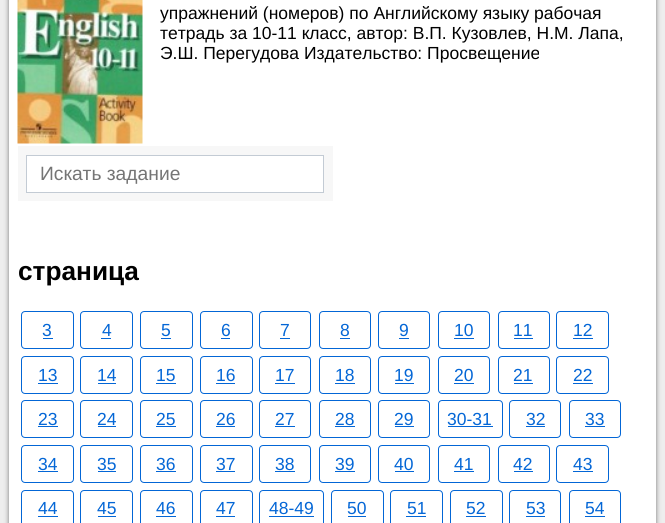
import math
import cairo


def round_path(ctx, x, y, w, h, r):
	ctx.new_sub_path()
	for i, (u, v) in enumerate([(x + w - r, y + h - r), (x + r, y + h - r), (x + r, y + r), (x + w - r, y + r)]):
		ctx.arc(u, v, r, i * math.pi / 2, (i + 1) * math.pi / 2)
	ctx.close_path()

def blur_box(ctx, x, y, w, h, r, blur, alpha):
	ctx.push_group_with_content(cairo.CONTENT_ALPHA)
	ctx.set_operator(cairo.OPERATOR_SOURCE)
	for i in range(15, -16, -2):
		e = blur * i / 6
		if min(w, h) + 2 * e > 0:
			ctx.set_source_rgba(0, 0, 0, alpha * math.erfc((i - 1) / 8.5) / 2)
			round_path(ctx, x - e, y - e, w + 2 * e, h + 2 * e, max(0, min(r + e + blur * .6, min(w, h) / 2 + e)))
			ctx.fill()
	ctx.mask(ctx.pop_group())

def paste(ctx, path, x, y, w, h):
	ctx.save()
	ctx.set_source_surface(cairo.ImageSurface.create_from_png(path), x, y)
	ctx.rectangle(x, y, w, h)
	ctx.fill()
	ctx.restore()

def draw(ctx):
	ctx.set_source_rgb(0.933, 0.933, 0.933)
	ctx.paint()
	ctx.set_source_rgb(0.467, 0.467, 0.467)
	blur_box(ctx, 9, -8, 647, 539, 0, 2.5, 1)
	ctx.set_source_rgb(1, 1, 1)
	ctx.rectangle(9, 0, 647, 523)
	ctx.fill()
	paste(ctx, 'media/1.png', 17, 0, 126, 144)
	ctx.select_font_face('Liberation Sans')
	ctx.set_font_size(17.5)
	ctx.set_source_rgb(0, 0, 0)
	for x, y, s in [
		(160, 19, 'упражнений (номеров) по Английскому языку рабочая'),
		(160, 39, 'тетрадь за 10‐11 класс, автор: В.П. Кузовлев, Н.М. Лапа,'),
		(160, 59, 'Э.Ш. Перегудова Издательство: Просвещение'),
	]:
		ctx.move_to(x, y)
		ctx.show_text(s)
	ctx.set_source_rgb(0.965, 0.965, 0.965)
	ctx.rectangle(18, 146, 315, 55)
	ctx.fill()
	ctx.set_source_rgb(1, 1, 1)
	ctx.rectangle(26.5, 155.5, 297, 37)
	ctx.fill_preserve()
	ctx.set_source_rgb(0.765, 0.796, 0.831)
	ctx.set_line_width(1)
	ctx.stroke()
	ctx.set_font_size(19.25)
	ctx.set_source_rgb(0.459, 0.459, 0.459)
	ctx.move_to(40, 180)
	ctx.show_text('Искать задание')
	ctx.select_font_face('Liberation Sans', cairo.FONT_SLANT_NORMAL, cairo.FONT_WEIGHT_BOLD)
	ctx.set_font_size(26.25)
	ctx.set_source_rgb(0, 0, 0)
	ctx.move_to(18, 280)
	ctx.show_text('страница')
	round_path(ctx, 21.5, 311.5, 52, 37, 3.5)
	ctx.set_source_rgb(0.012, 0.4, 0.839)
	ctx.stroke()
	ctx.select_font_face('Liberation Sans')
	ctx.set_font_size(17.5)
	ctx.move_to(42, 336)
	ctx.show_text('3')
	ctx.rectangle(43, 338, 10, 1)
	ctx.fill()
	round_path(ctx, 80.5, 311.5, 52, 37, 3.5)
	ctx.stroke()
	ctx.move_to(102, 336)
	ctx.show_text('4')
	ctx.rectangle(101, 338, 10, 1)
	ctx.fill()
	round_path(ctx, 140.5, 311.5, 52, 37, 3.5)
	ctx.stroke()
	ctx.move_to(161, 336)
	ctx.show_text('5')
	ctx.rectangle(161, 338, 10, 1)
	ctx.fill()
	round_path(ctx, 200.5, 311.5, 52, 37, 3.5)
	ctx.stroke()
	ctx.move_to(221, 336)
	ctx.show_text('6')
	ctx.rectangle(221, 338, 9, 1)
	ctx.fill()
	round_path(ctx, 259.5, 311.5, 51, 37, 3.5)
	ctx.stroke()
	ctx.move_to(280, 336)
	ctx.show_text('7')
	ctx.rectangle(280, 338, 10, 1)
	ctx.fill()
	round_path(ctx, 319.5, 311.5, 51, 37, 3.5)
	ctx.stroke()
	ctx.move_to(340, 336)
	ctx.show_text('8')
	ctx.rectangle(340, 338, 10, 1)
	ctx.fill()
	round_path(ctx, 378.5, 311.5, 51, 37, 3.5)
	ctx.stroke()
	ctx.move_to(399, 336)
	ctx.show_text('9')
	ctx.rectangle(399, 338, 10, 1)
	ctx.fill()
	round_path(ctx, 438.5, 311.5, 51, 37, 3.5)
	ctx.stroke()
	ctx.move_to(454, 336)
	ctx.show_text('10')
	ctx.rectangle(454, 338, 20, 1)
	ctx.fill()
	round_path(ctx, 498.5, 311.5, 51, 37, 3.5)
	ctx.stroke()
	ctx.move_to(513, 336)
	ctx.show_text('11')
	ctx.rectangle(514, 338, 19, 1)
	ctx.fill()
	round_path(ctx, 556.5, 311.5, 52, 37, 3.5)
	ctx.stroke()
	ctx.move_to(573, 336)
	ctx.show_text('12')
	ctx.rectangle(573, 338, 20, 1)
	ctx.fill()
	round_path(ctx, 21.5, 356.5, 52, 37, 3.5)
	ctx.stroke()
	ctx.move_to(38, 381)
	ctx.show_text('13')
	ctx.rectangle(38, 383, 20, 1)
	ctx.fill()
	round_path(ctx, 80.5, 356.5, 52, 37, 3.5)
	ctx.stroke()
	ctx.move_to(97, 381)
	ctx.show_text('14')
	ctx.rectangle(98, 383, 18, 1)
	ctx.fill()
	round_path(ctx, 140.5, 356.5, 52, 37, 3.5)
	ctx.stroke()
	ctx.move_to(156, 381)
	ctx.show_text('15')
	ctx.rectangle(156, 383, 20, 1)
	ctx.fill()
	round_path(ctx, 200.5, 356.5, 52, 37, 3.5)
	ctx.stroke()
	ctx.move_to(216, 381)
	ctx.show_text('16')
	ctx.rectangle(216, 383, 19, 1)
	ctx.fill()
	round_path(ctx, 259.5, 356.5, 51, 37, 3.5)
	ctx.stroke()
	ctx.move_to(275, 381)
	ctx.show_text('17')
	ctx.rectangle(275, 383, 20, 1)
	ctx.fill()
	round_path(ctx, 319.5, 356.5, 51, 37, 3.5)
	ctx.stroke()
	ctx.move_to(335, 381)
	ctx.show_text('18')
	ctx.rectangle(335, 383, 20, 1)
	ctx.fill()
	round_path(ctx, 378.5, 356.5, 51, 37, 3.5)
	ctx.stroke()
	ctx.move_to(394, 381)
	ctx.show_text('19')
	ctx.rectangle(395, 383, 19, 1)
	ctx.fill()
	round_path(ctx, 438.5, 356.5, 51, 37, 3.5)
	ctx.stroke()
	ctx.move_to(454, 381)
	ctx.show_text('20')
	ctx.rectangle(454, 383, 20, 1)
	ctx.fill()
	round_path(ctx, 498.5, 356.5, 51, 37, 3.5)
	ctx.stroke()
	ctx.move_to(513, 381)
	ctx.show_text('21')
	ctx.rectangle(514, 383, 19, 1)
	ctx.fill()
	round_path(ctx, 556.5, 356.5, 52, 37, 3.5)
	ctx.stroke()
	ctx.move_to(573, 381)
	ctx.show_text('22')
	ctx.rectangle(573, 383, 20, 1)
	ctx.fill()
	round_path(ctx, 21.5, 400.5, 52, 37, 3.5)
	ctx.stroke()
	ctx.move_to(38, 425)
	ctx.show_text('23')
	ctx.rectangle(38, 426, 20, 1)
	ctx.fill()
	round_path(ctx, 80.5, 400.5, 52, 37, 3.5)
	ctx.stroke()
	ctx.move_to(97, 425)
	ctx.show_text('24')
	ctx.rectangle(98, 426, 18, 1)
	ctx.fill()
	round_path(ctx, 140.5, 400.5, 52, 37, 3.5)
	ctx.stroke()
	ctx.move_to(156, 425)
	ctx.show_text('25')
	ctx.rectangle(156, 426, 20, 1)
	ctx.fill()
	round_path(ctx, 200.5, 400.5, 52, 37, 3.5)
	ctx.stroke()
	ctx.move_to(216, 425)
	ctx.show_text('26')
	ctx.rectangle(216, 426, 19, 1)
	ctx.fill()
	round_path(ctx, 259.5, 400.5, 51, 37, 3.5)
	ctx.stroke()
	ctx.move_to(275, 425)
	ctx.show_text('27')
	ctx.rectangle(275, 426, 20, 1)
	ctx.fill()
	round_path(ctx, 319.5, 400.5, 51, 37, 3.5)
	ctx.stroke()
	ctx.move_to(335, 425)
	ctx.show_text('28')
	ctx.rectangle(335, 426, 20, 1)
	ctx.fill()
	round_path(ctx, 378.5, 400.5, 51, 37, 3.5)
	ctx.stroke()
	ctx.move_to(394, 425)
	ctx.show_text('29')
	ctx.rectangle(395, 426, 19, 1)
	ctx.fill()
	round_path(ctx, 438.5, 400.5, 64, 37, 3.5)
	ctx.stroke()
	ctx.move_to(447, 425)
	ctx.show_text('30-31')
	ctx.rectangle(448, 426, 45, 1)
	ctx.fill()
	round_path(ctx, 509.5, 400.5, 51, 37, 3.5)
	ctx.stroke()
	ctx.move_to(526, 425)
	ctx.show_text('32')
	ctx.rectangle(526, 426, 19, 1)
	ctx.fill()
	round_path(ctx, 569.5, 400.5, 51, 37, 3.5)
	ctx.stroke()
	ctx.move_to(585, 425)
	ctx.show_text('33')
	ctx.rectangle(585, 426, 20, 1)
	ctx.fill()
	round_path(ctx, 21.5, 445.5, 52, 37, 3.5)
	ctx.stroke()
	ctx.move_to(38, 470)
	ctx.show_text('34')
	ctx.rectangle(38, 471, 20, 1)
	ctx.fill()
	round_path(ctx, 80.5, 445.5, 52, 37, 3.5)
	ctx.stroke()
	ctx.move_to(97, 470)
	ctx.show_text('35')
	ctx.rectangle(98, 471, 18, 1)
	ctx.fill()
	round_path(ctx, 140.5, 445.5, 52, 37, 3.5)
	ctx.stroke()
	ctx.move_to(156, 470)
	ctx.show_text('36')
	ctx.rectangle(156, 471, 20, 1)
	ctx.fill()
	round_path(ctx, 200.5, 445.5, 52, 37, 3.5)
	ctx.stroke()
	ctx.move_to(216, 470)
	ctx.show_text('37')
	ctx.rectangle(216, 471, 19, 1)
	ctx.fill()
	round_path(ctx, 259.5, 445.5, 51, 37, 3.5)
	ctx.stroke()
	ctx.move_to(275, 470)
	ctx.show_text('38')
	ctx.rectangle(275, 471, 20, 1)
	ctx.fill()
	round_path(ctx, 319.5, 445.5, 51, 37, 3.5)
	ctx.stroke()
	ctx.move_to(335, 470)
	ctx.show_text('39')
	ctx.rectangle(335, 471, 20, 1)
	ctx.fill()
	round_path(ctx, 378.5, 445.5, 51, 37, 3.5)
	ctx.stroke()
	ctx.move_to(394, 470)
	ctx.show_text('40')
	ctx.rectangle(395, 471, 19, 1)
	ctx.fill()
	round_path(ctx, 438.5, 445.5, 51, 37, 3.5)
	ctx.stroke()
	ctx.move_to(454, 470)
	ctx.show_text('41')
	ctx.rectangle(454, 471, 20, 1)
	ctx.fill()
	round_path(ctx, 498.5, 445.5, 51, 37, 3.5)
	ctx.stroke()
	ctx.move_to(513, 470)
	ctx.show_text('42')
	ctx.rectangle(514, 471, 19, 1)
	ctx.fill()
	round_path(ctx, 556.5, 445.5, 52, 37, 3.5)
	ctx.stroke()
	ctx.move_to(573, 470)
	ctx.show_text('43')
	ctx.rectangle(573, 471, 20, 1)
	ctx.fill()
	round_path(ctx, 21.5, 490.5, 52, 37, 3.5)
	ctx.stroke()
	ctx.move_to(38, 514)
	ctx.show_text('44')
	ctx.rectangle(38, 516, 20, 1)
	ctx.fill()
	round_path(ctx, 80.5, 490.5, 52, 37, 3.5)
	ctx.stroke()
	ctx.move_to(97, 514)
	ctx.show_text('45')
	ctx.rectangle(98, 516, 18, 1)
	ctx.fill()
	round_path(ctx, 140.5, 490.5, 52, 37, 3.5)
	ctx.stroke()
	ctx.move_to(156, 514)
	ctx.show_text('46')
	ctx.rectangle(156, 516, 20, 1)
	ctx.fill()
	round_path(ctx, 200.5, 490.5, 52, 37, 3.5)
	ctx.stroke()
	ctx.move_to(216, 514)
	ctx.show_text('47')
	ctx.rectangle(216, 516, 19, 1)
	ctx.fill()
	round_path(ctx, 259.5, 490.5, 64, 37, 3.5)
	ctx.stroke()
	ctx.move_to(269, 514)
	ctx.show_text('48-49')
	ctx.rectangle(269, 516, 45, 1)
	ctx.fill()
	round_path(ctx, 331.5, 490.5, 52, 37, 3.5)
	ctx.stroke()
	ctx.move_to(347, 514)
	ctx.show_text('50')
	ctx.rectangle(348, 516, 18, 1)
	ctx.fill()
	round_path(ctx, 390.5, 490.5, 52, 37, 3.5)
	ctx.stroke()
	ctx.move_to(407, 514)
	ctx.show_text('51')
	ctx.rectangle(406, 516, 20, 1)
	ctx.fill()
	round_path(ctx, 450.5, 490.5, 52, 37, 3.5)
	ctx.stroke()
	ctx.move_to(466, 514)
	ctx.show_text('52')
	ctx.rectangle(466, 516, 20, 1)
	ctx.fill()
	round_path(ctx, 509.5, 490.5, 51, 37, 3.5)
	ctx.stroke()
	ctx.move_to(526, 514)
	ctx.show_text('53')
	ctx.rectangle(526, 516, 19, 1)
	ctx.fill()
	round_path(ctx, 569.5, 490.5, 51, 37, 3.5)
	ctx.stroke()
	ctx.move_to(585, 514)
	ctx.show_text('54')
	ctx.rectangle(585, 516, 20, 1)
	ctx.fill()


surface = cairo.ImageSurface(cairo.FORMAT_RGB24, 665, 523)
ctx = cairo.Context(surface)
options = cairo.FontOptions()
options.set_hint_metrics(cairo.HINT_METRICS_OFF)
options.set_hint_style(cairo.HINT_STYLE_NONE)
ctx.set_font_options(options)
ctx.set_miter_limit(4)
draw(ctx)
surface.write_to_png('image.png')
